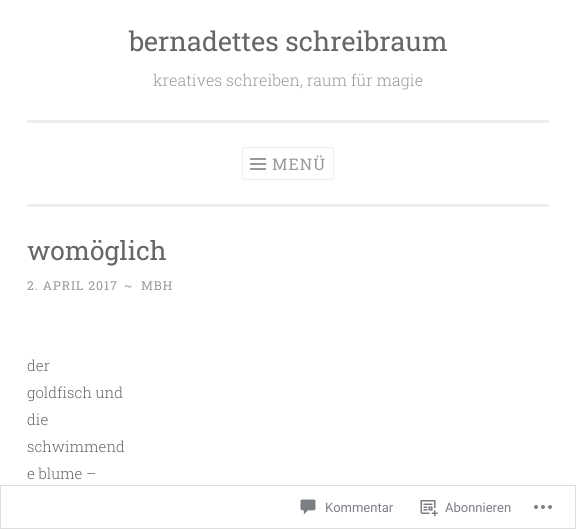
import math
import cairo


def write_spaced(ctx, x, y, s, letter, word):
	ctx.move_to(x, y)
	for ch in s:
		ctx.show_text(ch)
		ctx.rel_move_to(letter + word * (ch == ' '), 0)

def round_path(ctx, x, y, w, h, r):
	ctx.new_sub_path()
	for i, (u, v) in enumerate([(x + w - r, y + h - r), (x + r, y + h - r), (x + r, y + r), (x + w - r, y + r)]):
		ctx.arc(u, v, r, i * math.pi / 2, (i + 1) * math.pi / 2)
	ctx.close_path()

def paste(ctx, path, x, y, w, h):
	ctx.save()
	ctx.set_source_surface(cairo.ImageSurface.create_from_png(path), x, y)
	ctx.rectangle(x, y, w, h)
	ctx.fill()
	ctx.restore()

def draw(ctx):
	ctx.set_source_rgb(1, 1, 1)
	ctx.paint()
	ctx.set_source_rgb(0.933, 0.933, 0.933)
	ctx.rectangle(27, 204, 522, 3)
	ctx.fill()
	ctx.select_font_face('Roboto Slab')
	ctx.set_font_size(27)
	ctx.set_source_rgb(0.4, 0.4, 0.4)
	ctx.move_to(129, 51)
	ctx.show_text('bernadettes schreibraum')
	ctx.select_font_face('Roboto Slab Light')
	ctx.set_font_size(16)
	ctx.set_source_rgb(0.6, 0.6, 0.6)
	ctx.move_to(153, 86)
	ctx.show_text('kreatives schreiben, raum für magie')
	ctx.set_source_rgb(0.933, 0.933, 0.933)
	ctx.rectangle(27, 120, 522, 3)
	ctx.fill()
	round_path(ctx, 242.5, 147.5, 91, 32, 2.5)
	ctx.set_line_width(1)
	ctx.stroke()
	paste(ctx, 'media/1.png', 250, 158, 16, 12)
	ctx.select_font_face('Roboto Slab')
	ctx.set_source_rgb(0.6, 0.6, 0.6)
	write_spaced(ctx, 272, 170, 'MENÜ', 1, 0)
	ctx.set_font_size(26.25)
	ctx.set_source_rgb(0.4, 0.4, 0.4)
	ctx.move_to(27, 260)
	ctx.show_text('womöglich')
	ctx.set_font_size(12.25)
	ctx.set_source_rgb(0.6, 0.6, 0.6)
	for x, y, s in [
		(27, 290, '2. APRIL 2017'),
		(124, 290, '~'),
		(141, 290, 'MBH'),
	]:
		write_spaced(ctx, x, y, s, 1, 0)
	ctx.select_font_face('Roboto Slab Light')
	ctx.set_font_size(15)
	ctx.set_source_rgb(0.4, 0.4, 0.4)
	for x, y, s in [
		(27, 371, 'der'),
		(27, 398, 'goldfisch und'),
		(27, 425, 'die'),
		(27, 452, 'schwimmend'),
		(27, 479, 'e blume –'),
	]:
		ctx.move_to(x, y)
		ctx.show_text(s)
	ctx.rectangle(0.5, 485.5, 575, 43)
	ctx.set_source_rgba(0.863, 0.863, 0.871, 0.98)
	ctx.stroke()
	paste(ctx, 'media/2.png', 300, 499, 16, 16)
	ctx.select_font_face('Roboto')
	ctx.set_font_size(13)
	ctx.set_source_rgb(0.482, 0.498, 0.522)
	ctx.move_to(325, 512)
	ctx.show_text('Kommentar')
	paste(ctx, 'media/3.png', 420, 500, 18, 17)
	ctx.move_to(445, 512)
	ctx.show_text('Abonnieren')
	paste(ctx, 'media/4.png', 534, 505, 18, 4)


surface = cairo.ImageSurface(cairo.FORMAT_RGB24, 576, 529)
ctx = cairo.Context(surface)
options = cairo.FontOptions()
options.set_hint_metrics(cairo.HINT_METRICS_OFF)
options.set_hint_style(cairo.HINT_STYLE_NONE)
ctx.set_font_options(options)
ctx.set_miter_limit(4)
draw(ctx)
surface.write_to_png('image.png')
